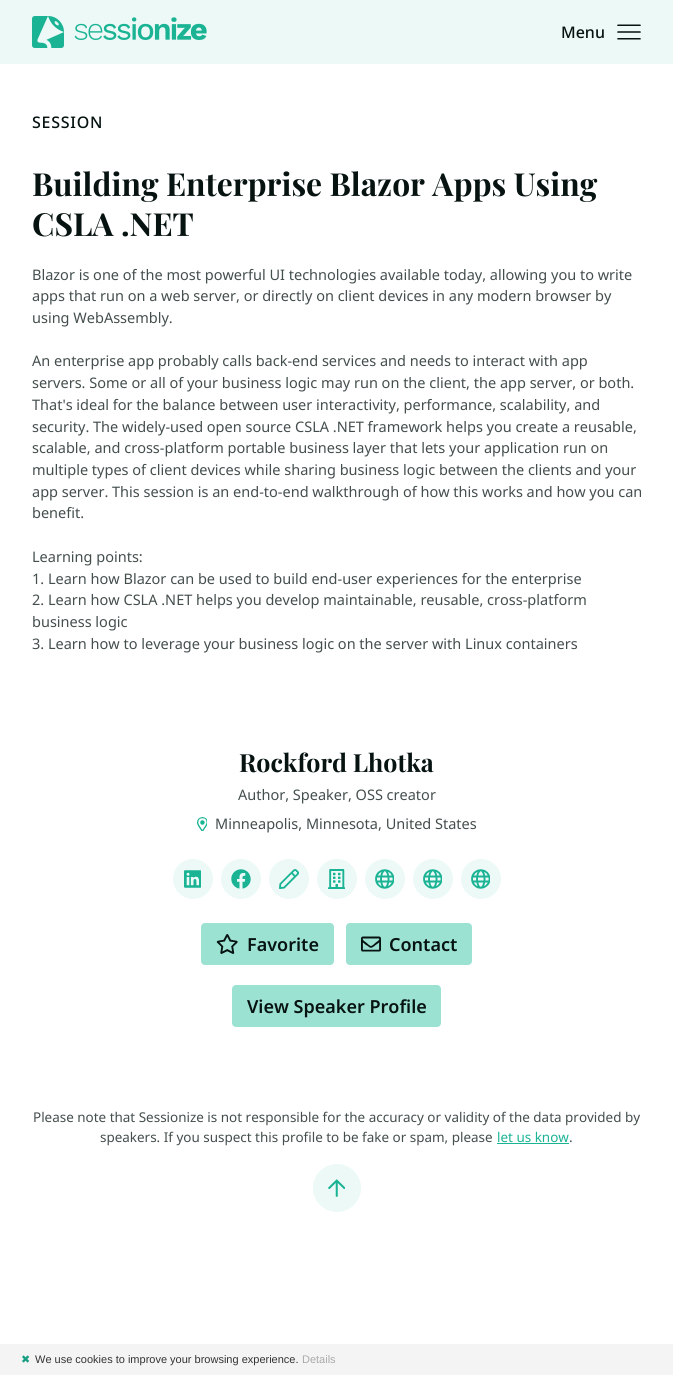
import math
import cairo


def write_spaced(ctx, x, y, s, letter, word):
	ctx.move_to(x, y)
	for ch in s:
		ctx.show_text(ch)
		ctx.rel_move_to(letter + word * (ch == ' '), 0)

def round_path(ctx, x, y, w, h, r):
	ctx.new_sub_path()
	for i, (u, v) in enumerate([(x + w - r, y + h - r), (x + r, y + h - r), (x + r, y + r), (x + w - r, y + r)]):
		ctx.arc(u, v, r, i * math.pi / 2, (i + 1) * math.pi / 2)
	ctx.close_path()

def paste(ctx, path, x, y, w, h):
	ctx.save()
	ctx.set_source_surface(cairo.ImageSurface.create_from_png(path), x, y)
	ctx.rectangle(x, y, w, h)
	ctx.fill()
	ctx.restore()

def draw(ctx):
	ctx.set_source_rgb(1, 1, 1)
	ctx.paint()
	ctx.set_source_rgb(0.925, 0.976, 0.965)
	ctx.rectangle(0, 0, 673, 64)
	ctx.fill()
	paste(ctx, 'media/1.png', 32, 16, 175, 32)
	ctx.select_font_face('Noto Sans Medium')
	ctx.set_font_size(16)
	ctx.set_source_rgb(0.024, 0.075, 0.067)
	ctx.move_to(561, 38)
	ctx.show_text('Menu')
	paste(ctx, 'media/2.png', 617, 24, 24, 16)
	write_spaced(ctx, 32, 128, 'SESSION', 0.75, 0)
	ctx.select_font_face('Playfair Display', cairo.FONT_SLANT_NORMAL, cairo.FONT_WEIGHT_BOLD)
	ctx.set_font_size(31.75)
	ctx.move_to(32, 196)
	ctx.show_text('Building Enterprise Blazor Apps Using')
	ctx.move_to(32, 236)
	ctx.show_text('CSLA .NET')
	ctx.select_font_face('Noto Sans')
	ctx.set_font_size(14.5)
	ctx.set_source_rgb(0.267, 0.306, 0.302)
	for x, y, s in [
		(32, 280, 'Blazor is one of the most powerful UI technologies available today, allowing you to write'),
		(32, 301, 'apps that run on a web server, or directly on client devices in any modern browser by'),
		(32, 323, 'using WebAssembly.'),
		(32, 366, 'An enterprise app probably calls back-end services and needs to interact with app'),
		(32, 388, 'servers. Some or all of your business logic may run on the client, the app server, or both.'),
		(32, 410, 'That\'s ideal for the balance between user interactivity, performance, scalability, and'),
		(32, 432, 'security. The widely-used open source CSLA .NET framework helps you create a reusable,'),
		(32, 453, 'scalable, and cross-platform portable business layer that lets your application run on'),
		(32, 475, 'multiple types of client devices while sharing business logic between the clients and your'),
		(32, 497, 'app server. This session is an end-to-end walkthrough of how this works and how you can'),
		(32, 518, 'benefit.'),
		(32, 562, 'Learning points:'),
		(32, 584, '1. Learn how Blazor can be used to build end-user experiences for the enterprise'),
		(32, 605, '2. Learn how CSLA .NET helps you develop maintainable, reusable, cross-platform'),
		(32, 627, 'business logic'),
		(32, 649, '3. Learn how to leverage your business logic on the server with Linux containers'),
	]:
		ctx.move_to(x, y)
		ctx.show_text(s)
	ctx.select_font_face('Playfair Display', cairo.FONT_SLANT_NORMAL, cairo.FONT_WEIGHT_BOLD)
	ctx.set_font_size(25)
	ctx.set_source_rgb(0.024, 0.075, 0.067)
	ctx.move_to(239, 772)
	ctx.show_text('Rockford Lhotka')
	ctx.select_font_face('Noto Sans')
	ctx.set_font_size(14.5)
	ctx.set_source_rgb(0.267, 0.306, 0.302)
	ctx.move_to(238, 800)
	ctx.show_text('Author, Speaker, OSS creator')
	paste(ctx, 'media/3.png', 197, 817, 10, 14)
	ctx.move_to(215, 829)
	ctx.show_text('Minneapolis, Minnesota, United States')
	ctx.set_source_rgb(0.925, 0.976, 0.965)
	ctx.new_path()
	ctx.arc(193, 879, 20, 0, 2 * math.pi)
	ctx.fill()
	paste(ctx, 'media/4.png', 184, 870, 17, 18)
	ctx.arc(241, 879, 20, 0, 2 * math.pi)
	ctx.fill()
	paste(ctx, 'media/5.png', 231, 869, 20, 20)
	ctx.arc(289, 879, 20, 0, 2 * math.pi)
	ctx.fill()
	paste(ctx, 'media/6.png', 279, 869, 20, 20)
	ctx.arc(337, 879, 20, 0, 2 * math.pi)
	ctx.fill()
	paste(ctx, 'media/7.png', 328, 869, 17, 20)
	ctx.arc(385, 879, 20, 0, 2 * math.pi)
	ctx.fill()
	paste(ctx, 'media/8.png', 375, 869, 19, 20)
	ctx.arc(433, 879, 20, 0, 2 * math.pi)
	ctx.fill()
	paste(ctx, 'media/8.png', 423, 869, 19, 20)
	ctx.arc(481, 879, 20, 0, 2 * math.pi)
	ctx.fill()
	paste(ctx, 'media/8.png', 471, 869, 19, 20)
	ctx.set_source_rgb(0.612, 0.886, 0.827)
	round_path(ctx, 201, 923, 133, 42, 4)
	ctx.fill()
	paste(ctx, 'media/9.png', 216, 934, 22, 20)
	ctx.select_font_face('Noto Sans SemiBold')
	ctx.set_font_size(18)
	ctx.set_source_rgb(0.024, 0.075, 0.067)
	ctx.move_to(247, 951)
	ctx.show_text('Favorite')
	ctx.set_source_rgb(0.612, 0.886, 0.827)
	round_path(ctx, 346, 923, 126, 42, 4)
	ctx.fill()
	paste(ctx, 'media/10.png', 361, 936, 20, 16)
	ctx.set_source_rgb(0.024, 0.075, 0.067)
	ctx.move_to(389, 951)
	ctx.show_text('Contact')
	ctx.set_source_rgb(0.612, 0.886, 0.827)
	round_path(ctx, 232, 985, 209, 42, 4)
	ctx.fill()
	ctx.set_source_rgb(0.024, 0.075, 0.067)
	ctx.move_to(247, 1013)
	ctx.show_text('View Speaker Profile')
	ctx.select_font_face('Noto Sans')
	ctx.set_font_size(13.45)
	ctx.set_source_rgb(0.267, 0.306, 0.302)
	ctx.move_to(33, 1122)
	ctx.show_text('Please note that Sessionize is not responsible for the accuracy or validity of the data provided by')
	ctx.move_to(100, 1142)
	ctx.show_text('speakers. If you suspect this profile to be fake or spam, please')
	ctx.set_source_rgb(0.102, 0.702, 0.58)
	ctx.move_to(497, 1142)
	ctx.show_text('let us know')
	ctx.rectangle(497, 1143, 72, 1)
	ctx.fill()
	ctx.set_source_rgb(0.267, 0.306, 0.302)
	ctx.move_to(569, 1142)
	ctx.show_text('.')
	ctx.set_source_rgb(0.925, 0.976, 0.965)
	ctx.new_path()
	ctx.arc(337, 1188, 24, 0, 2 * math.pi)
	ctx.fill()
	paste(ctx, 'media/11.png', 328, 1179, 17, 18)
	ctx.set_source_rgb(0.957, 0.957, 0.957)
	ctx.rectangle(0, 1344, 673, 31)
	ctx.fill()
	ctx.select_font_face('DejaVu Sans')
	ctx.set_font_size(11)
	ctx.set_source_rgb(0.09, 0.616, 0.51)
	ctx.move_to(21, 1363)
	ctx.show_text('✖')
	ctx.select_font_face('Liberation Sans')
	ctx.set_source_rgb(0.2, 0.2, 0.2)
	ctx.move_to(35, 1363)
	ctx.show_text('We use cookies to improve your browsing experience.')
	ctx.set_source_rgb(0.667, 0.667, 0.667)
	ctx.move_to(302, 1363)
	ctx.show_text('Details')


surface = cairo.ImageSurface(cairo.FORMAT_RGB24, 673, 1375)
ctx = cairo.Context(surface)
options = cairo.FontOptions()
options.set_hint_metrics(cairo.HINT_METRICS_OFF)
options.set_hint_style(cairo.HINT_STYLE_NONE)
ctx.set_font_options(options)
ctx.set_miter_limit(4)
draw(ctx)
surface.write_to_png('image.png')
